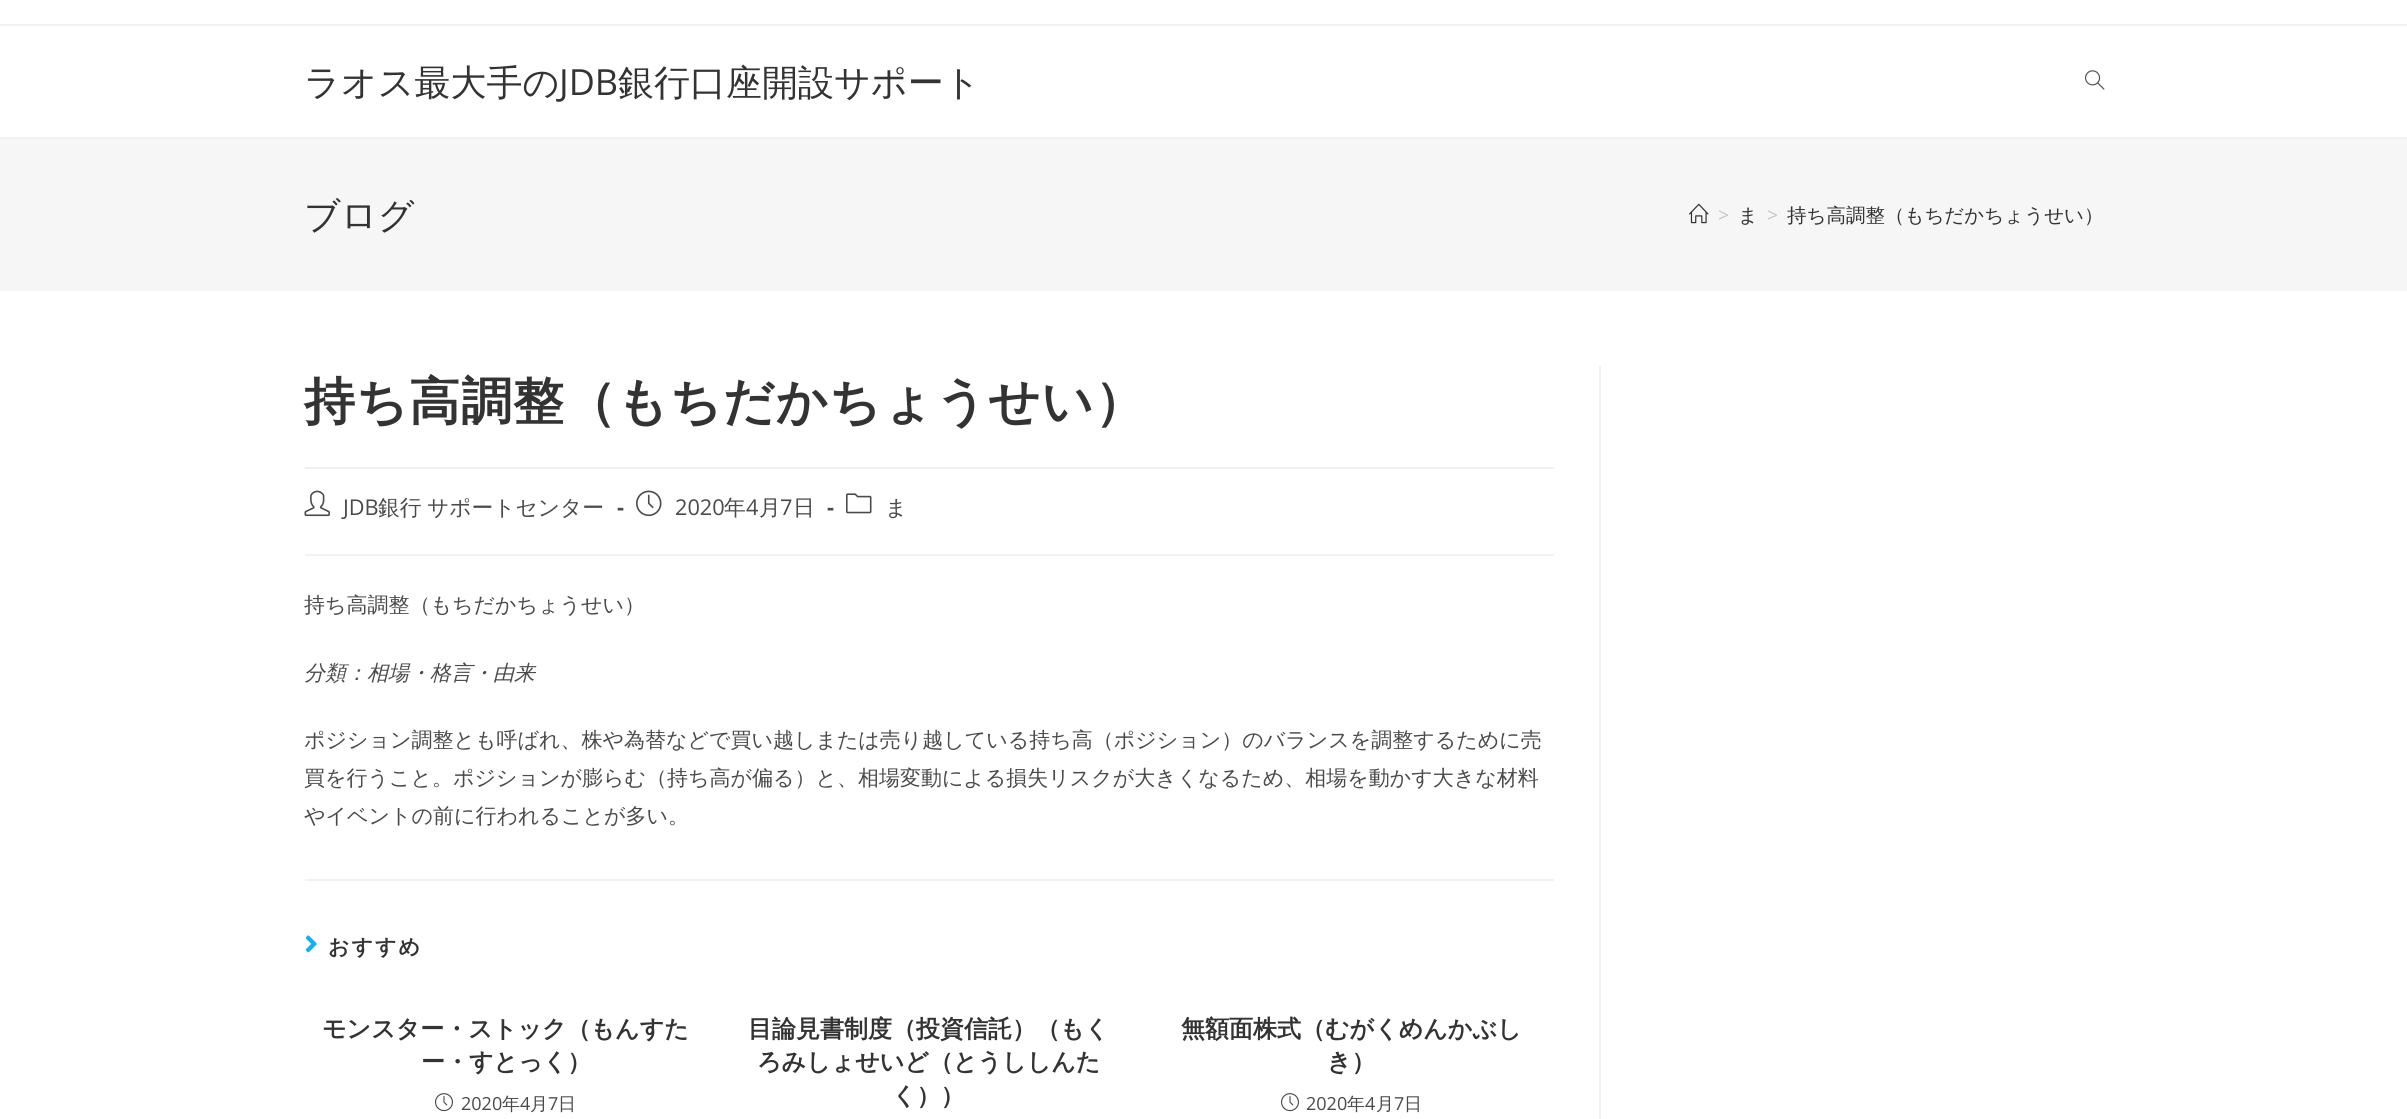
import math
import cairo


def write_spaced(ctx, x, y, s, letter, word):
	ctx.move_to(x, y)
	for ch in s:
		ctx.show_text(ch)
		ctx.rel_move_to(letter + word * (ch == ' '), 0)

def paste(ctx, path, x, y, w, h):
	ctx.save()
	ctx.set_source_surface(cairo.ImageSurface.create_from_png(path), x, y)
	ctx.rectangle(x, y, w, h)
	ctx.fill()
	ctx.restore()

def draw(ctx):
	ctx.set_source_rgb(1, 1, 1)
	ctx.paint()
	ctx.set_source_rgb(0.945, 0.945, 0.945)
	ctx.rectangle(0, 24, 2407, 2)
	ctx.fill()
	ctx.rectangle(0, 137, 2407, 2)
	ctx.fill()
	ctx.select_font_face('WenQuanYi Zen Hei Medium')
	ctx.set_font_size(36)
	ctx.set_source_rgb(0.2, 0.2, 0.2)
	ctx.move_to(304, 95)
	ctx.show_text('ラオス最大手の')
	ctx.select_font_face('Open Sans')
	ctx.move_to(559, 95)
	ctx.show_text('JDB')
	ctx.select_font_face('WenQuanYi Zen Hei Medium')
	ctx.move_to(618, 95)
	ctx.show_text('銀行口座開設サポート')
	paste(ctx, 'media/1.png', 2085, 70, 20, 20)
	ctx.set_source_rgb(0.961, 0.961, 0.961)
	ctx.rectangle(0, 139, 2407, 152)
	ctx.fill()
	ctx.set_source_rgb(0.2, 0.2, 0.2)
	ctx.move_to(304, 228)
	ctx.show_text('ブログ')
	paste(ctx, 'media/2.png', 1689, 203, 20, 21)
	ctx.select_font_face('Open Sans')
	ctx.set_font_size(19.5)
	ctx.set_source_rgb(0.776, 0.776, 0.776)
	ctx.move_to(1718, 222)
	ctx.show_text('>')
	ctx.select_font_face('WenQuanYi Zen Hei Medium')
	ctx.set_source_rgb(0.2, 0.2, 0.2)
	ctx.move_to(1738, 222)
	ctx.show_text('ま')
	ctx.select_font_face('Open Sans')
	ctx.set_source_rgb(0.776, 0.776, 0.776)
	ctx.move_to(1767, 222)
	ctx.show_text('>')
	ctx.select_font_face('WenQuanYi Zen Hei Medium')
	ctx.set_source_rgb(0.2, 0.2, 0.2)
	ctx.move_to(1787, 222)
	ctx.show_text('持ち高調整（もちだかちょうせい）')
	ctx.set_source_rgb(0.945, 0.945, 0.945)
	ctx.rectangle(1599, 366, 2, 753)
	ctx.fill()
	ctx.rectangle(305, 467, 1249, 2)
	ctx.fill()
	ctx.select_font_face('WenQuanYi Zen Hei', cairo.FONT_SLANT_NORMAL, cairo.FONT_WEIGHT_BOLD)
	ctx.set_font_size(51)
	ctx.set_source_rgb(0.2, 0.2, 0.2)
	write_spaced(ctx, 304, 419, '持ち高調整（もちだかちょうせい）', 0.9, 0)
	ctx.set_source_rgb(0.945, 0.945, 0.945)
	ctx.rectangle(305, 554, 1249, 2)
	ctx.fill()
	paste(ctx, 'media/3.png', 304, 490, 26, 27)
	ctx.select_font_face('Open Sans')
	ctx.set_font_size(21.75)
	ctx.set_source_rgb(0.29, 0.29, 0.29)
	ctx.move_to(343, 515)
	ctx.show_text('JDB')
	ctx.select_font_face('WenQuanYi Zen Hei Medium')
	write_spaced(ctx, 378, 515, '銀行 サポートセンター', 0, -1)
	ctx.select_font_face('Open Sans', cairo.FONT_SLANT_NORMAL, cairo.FONT_WEIGHT_BOLD)
	ctx.move_to(617, 515)
	ctx.show_text('-')
	paste(ctx, 'media/4.png', 636, 490, 26, 27)
	ctx.select_font_face('Open Sans')
	ctx.move_to(675, 515)
	ctx.show_text('2020')
	ctx.select_font_face('WenQuanYi Zen Hei Medium')
	ctx.move_to(724, 515)
	ctx.show_text('年')
	ctx.select_font_face('Open Sans')
	ctx.move_to(746, 515)
	ctx.show_text('4')
	ctx.select_font_face('WenQuanYi Zen Hei Medium')
	ctx.move_to(759, 515)
	ctx.show_text('月')
	ctx.select_font_face('Open Sans')
	ctx.move_to(780, 515)
	ctx.show_text('7')
	ctx.select_font_face('WenQuanYi Zen Hei Medium')
	ctx.move_to(793, 515)
	ctx.show_text('日')
	ctx.select_font_face('Open Sans', cairo.FONT_SLANT_NORMAL, cairo.FONT_WEIGHT_BOLD)
	ctx.move_to(827, 515)
	ctx.show_text('-')
	paste(ctx, 'media/5.png', 846, 493, 26, 21)
	ctx.select_font_face('WenQuanYi Zen Hei Medium')
	ctx.move_to(885, 515)
	ctx.show_text('ま')
	ctx.set_font_size(21)
	ctx.move_to(304, 612)
	ctx.show_text('持ち高調整（もちだかちょうせい）')
	ctx.select_font_face('WenQuanYi Zen Hei Medium', cairo.FONT_SLANT_ITALIC)
	ctx.move_to(304, 680)
	ctx.show_text('分類：相場・格言・由来')
	ctx.select_font_face('WenQuanYi Zen Hei Medium')
	for x, y, s in [
		(304, 747, 'ポジション調整とも呼ばれ、株や為替などで買い越しまたは売り越している持ち高（ポジション）のバランスを調整するために売'),
		(304, 785, '買を行うこと。ポジションが膨らむ（持ち高が偏る）と、相場変動による損失リスクが大きくなるため、相場を動かす大きな材料'),
		(304, 823, 'やイベントの前に行われることが多い。'),
	]:
		ctx.move_to(x, y)
		ctx.show_text(s)
	ctx.set_source_rgb(0.945, 0.945, 0.945)
	ctx.rectangle(305, 879, 1249, 2)
	ctx.fill()
	paste(ctx, 'media/6.png', 305, 935, 12, 18)
	ctx.select_font_face('WenQuanYi Zen Hei', cairo.FONT_SLANT_NORMAL, cairo.FONT_WEIGHT_BOLD)
	ctx.set_source_rgb(0.2, 0.2, 0.2)
	write_spaced(ctx, 328, 954, 'おすすめ', 2, 0)
	ctx.set_font_size(24)
	ctx.move_to(322, 1037)
	ctx.show_text('モンスター・ストック（もんすた')
	ctx.move_to(421, 1070)
	ctx.show_text('ー・すとっく）')
	paste(ctx, 'media/7.png', 435, 1093, 18, 19)
	ctx.select_font_face('Open Sans')
	ctx.set_font_size(18)
	ctx.set_source_rgb(0.29, 0.29, 0.29)
	ctx.move_to(461, 1110)
	ctx.show_text('2020')
	ctx.select_font_face('WenQuanYi Zen Hei Medium')
	ctx.move_to(502, 1110)
	ctx.show_text('年')
	ctx.select_font_face('Open Sans')
	ctx.move_to(520, 1110)
	ctx.show_text('4')
	ctx.select_font_face('WenQuanYi Zen Hei Medium')
	ctx.move_to(530, 1110)
	ctx.show_text('月')
	ctx.select_font_face('Open Sans')
	ctx.move_to(548, 1110)
	ctx.show_text('7')
	ctx.select_font_face('WenQuanYi Zen Hei Medium')
	ctx.move_to(558, 1110)
	ctx.show_text('日')
	ctx.select_font_face('WenQuanYi Zen Hei', cairo.FONT_SLANT_NORMAL, cairo.FONT_WEIGHT_BOLD)
	ctx.set_font_size(24)
	ctx.set_source_rgb(0.2, 0.2, 0.2)
	for x, y, s in [
		(748, 1037, '目論見書制度（投資信託）（もく'),
		(757, 1070, 'ろみしょせいど（とうししんた'),
		(892, 1104, 'く））'),
		(1181, 1037, '無額面株式（むがくめんかぶし'),
		(1327, 1070, 'き）'),
	]:
		ctx.move_to(x, y)
		ctx.show_text(s)
	paste(ctx, 'media/7.png', 1281, 1093, 18, 19)
	ctx.select_font_face('Open Sans')
	ctx.set_font_size(18)
	ctx.set_source_rgb(0.29, 0.29, 0.29)
	ctx.move_to(1306, 1110)
	ctx.show_text('2020')
	ctx.select_font_face('WenQuanYi Zen Hei Medium')
	ctx.move_to(1347, 1110)
	ctx.show_text('年')
	ctx.select_font_face('Open Sans')
	ctx.move_to(1365, 1110)
	ctx.show_text('4')
	ctx.select_font_face('WenQuanYi Zen Hei Medium')
	ctx.move_to(1376, 1110)
	ctx.show_text('月')
	ctx.select_font_face('Open Sans')
	ctx.move_to(1394, 1110)
	ctx.show_text('7')
	ctx.select_font_face('WenQuanYi Zen Hei Medium')
	ctx.move_to(1404, 1110)
	ctx.show_text('日')


surface = cairo.ImageSurface(cairo.FORMAT_RGB24, 2407, 1119)
ctx = cairo.Context(surface)
options = cairo.FontOptions()
options.set_hint_metrics(cairo.HINT_METRICS_OFF)
options.set_hint_style(cairo.HINT_STYLE_NONE)
ctx.set_font_options(options)
ctx.set_miter_limit(4)
draw(ctx)
surface.write_to_png('image.png')
